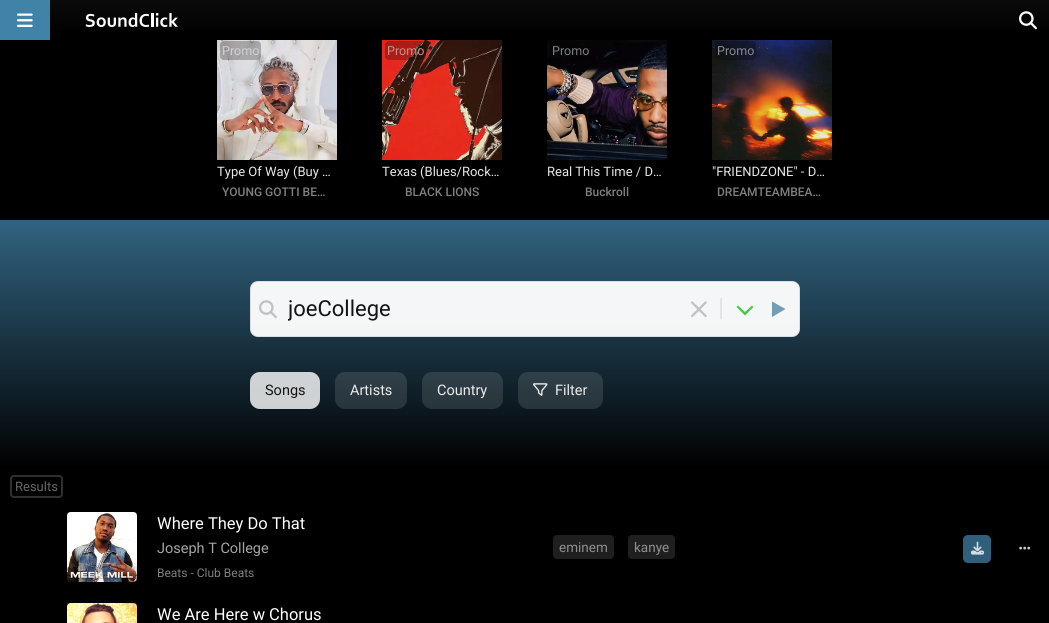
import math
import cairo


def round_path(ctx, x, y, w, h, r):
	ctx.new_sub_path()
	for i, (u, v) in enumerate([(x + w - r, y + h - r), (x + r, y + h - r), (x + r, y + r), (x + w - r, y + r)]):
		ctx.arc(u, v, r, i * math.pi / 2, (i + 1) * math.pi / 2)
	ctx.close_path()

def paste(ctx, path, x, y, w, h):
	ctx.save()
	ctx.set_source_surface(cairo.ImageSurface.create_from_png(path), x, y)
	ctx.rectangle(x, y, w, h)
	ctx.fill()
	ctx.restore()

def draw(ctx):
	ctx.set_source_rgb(0, 0, 0)
	ctx.paint()
	gradient = cairo.LinearGradient(525, 40, 525, 0)
	gradient.add_color_stop_rgba(0, 0, 0, 0, 1)
	gradient.add_color_stop_rgba(1, 0.039, 0.039, 0.039, 1)
	ctx.set_source(gradient)
	ctx.rectangle(50, 0, 999, 30)
	ctx.fill()
	ctx.set_source_rgb(0.255, 0.514, 0.659)
	ctx.rectangle(0, 0, 50, 40)
	ctx.fill()
	paste(ctx, 'media/1.png', 17, 13, 16, 14)
	paste(ctx, 'media/2.png', 85, 13, 93, 14)
	paste(ctx, 'media/3.png', 1019, 11, 18, 19)
	paste(ctx, 'media/4.png', 217, 40, 120, 120)
	ctx.set_source_rgba(0, 0, 0, 0.25)
	round_path(ctx, 220, 41, 41, 19, 4)
	ctx.fill()
	ctx.select_font_face('Roboto')
	ctx.set_font_size(12.5)
	ctx.set_source_rgb(0.82, 0.816, 0.82)
	ctx.move_to(222, 55)
	ctx.show_text('Promo')
	ctx.set_font_size(13)
	ctx.set_source_rgb(0.902, 0.902, 0.902)
	ctx.move_to(217, 176)
	ctx.show_text('Type Of Way (Buy …')
	ctx.select_font_face('Roboto Medium')
	ctx.set_font_size(12)
	ctx.set_source_rgb(0.502, 0.502, 0.502)
	ctx.move_to(222, 196)
	ctx.show_text('YOUNG GOTTI BE…')
	paste(ctx, 'media/5.png', 382, 40, 120, 120)
	ctx.set_source_rgba(0, 0, 0, 0.25)
	round_path(ctx, 385, 41, 41, 19, 4)
	ctx.fill()
	ctx.select_font_face('Roboto')
	ctx.set_font_size(12.5)
	ctx.set_source_rgb(0.776, 0.565, 0.549)
	ctx.move_to(387, 55)
	ctx.show_text('Promo')
	ctx.set_font_size(13)
	ctx.set_source_rgb(0.902, 0.902, 0.902)
	ctx.move_to(382, 176)
	ctx.show_text('Texas (Blues/Rock…')
	ctx.select_font_face('Roboto Medium')
	ctx.set_font_size(12)
	ctx.set_source_rgb(0.502, 0.502, 0.502)
	ctx.move_to(405, 196)
	ctx.show_text('BLACK LIONS')
	paste(ctx, 'media/6.png', 547, 40, 120, 120)
	ctx.set_source_rgba(0, 0, 0, 0.25)
	round_path(ctx, 550, 41, 41, 19, 4)
	ctx.fill()
	ctx.select_font_face('Roboto')
	ctx.set_font_size(12.5)
	ctx.set_source_rgb(0.502, 0.502, 0.502)
	ctx.move_to(552, 55)
	ctx.show_text('Promo')
	ctx.set_font_size(13)
	ctx.set_source_rgb(0.902, 0.902, 0.902)
	ctx.move_to(547, 176)
	ctx.show_text('Real This Time / D…')
	ctx.select_font_face('Roboto Medium')
	ctx.set_font_size(12)
	ctx.set_source_rgb(0.502, 0.502, 0.502)
	ctx.move_to(585, 196)
	ctx.show_text('Buckroll')
	paste(ctx, 'media/7.png', 712, 40, 120, 120)
	ctx.set_source_rgba(0, 0, 0, 0.25)
	round_path(ctx, 715, 41, 41, 19, 4)
	ctx.fill()
	ctx.select_font_face('Roboto')
	ctx.set_font_size(12.5)
	ctx.set_source_rgb(0.537, 0.541, 0.569)
	ctx.move_to(717, 55)
	ctx.show_text('Promo')
	ctx.set_font_size(13)
	ctx.set_source_rgb(0.902, 0.902, 0.902)
	ctx.move_to(712, 176)
	ctx.show_text('"FRIENDZONE" - D…')
	ctx.select_font_face('Roboto Medium')
	ctx.set_font_size(12)
	ctx.set_source_rgb(0.502, 0.502, 0.502)
	ctx.move_to(717, 196)
	ctx.show_text('DREAMTEAMBEA…')
	gradient = cairo.LinearGradient(525, 470, 525, 220)
	gradient.add_color_stop_rgba(0, 0, 0, 0, 1)
	gradient.add_color_stop_rgba(1, 0.192, 0.388, 0.502, 1)
	ctx.set_source(gradient)
	ctx.rectangle(0, 220, 1049, 245)
	ctx.fill()
	ctx.set_source_rgba(1, 1, 1, 0.95)
	round_path(ctx, 250, 281, 550, 56, 8)
	ctx.fill()
	round_path(ctx, 250.5, 281.5, 549, 55, 7.5)
	ctx.set_source_rgba(0, 0, 0, 0.1)
	ctx.set_line_width(1)
	ctx.stroke()
	paste(ctx, 'media/8.png', 259, 300, 18, 19)
	ctx.save()
	ctx.rectangle(288, 296, 393, 25)
	ctx.clip()
	ctx.select_font_face('Roboto')
	ctx.set_font_size(22)
	ctx.set_source_rgb(0.082, 0.082, 0.082)
	ctx.move_to(288, 316)
	ctx.show_text('joeCollege')
	ctx.restore()
	paste(ctx, 'media/9.png', 691, 301, 16, 16)
	ctx.select_font_face('Roboto')
	ctx.set_font_size(25)
	ctx.set_source_rgb(0.878, 0.886, 0.89)
	ctx.move_to(718, 316)
	ctx.show_text('|')
	ctx.set_source_rgb(0.286, 0.784, 0.29)
	ctx.new_path()
	ctx.move_to(745, 315.5)
	ctx.line_to(753.5, 307)
	ctx.line_to(752, 305.5)
	ctx.line_to(745, 312)
	ctx.line_to(738, 305.5)
	ctx.line_to(736.5, 307)
	ctx.close_path()
	ctx.fill()
	ctx.set_source_rgb(0.447, 0.616, 0.71)
	ctx.new_path()
	ctx.move_to(785.5, 309)
	ctx.line_to(772, 301.5)
	ctx.line_to(772, 317)
	ctx.close_path()
	ctx.fill()
	ctx.set_source_rgba(1, 1, 1, 0.8)
	round_path(ctx, 250, 372, 70, 37, 10)
	ctx.fill()
	ctx.set_font_size(14.5)
	ctx.set_source_rgb(0.082, 0.082, 0.082)
	ctx.move_to(265, 395)
	ctx.show_text('Songs')
	ctx.set_source_rgba(1, 1, 1, 0.12)
	round_path(ctx, 335, 372, 72, 37, 10)
	ctx.fill()
	ctx.set_source_rgb(0.918, 0.922, 0.925)
	ctx.move_to(350, 395)
	ctx.show_text('Artists')
	ctx.set_source_rgba(1, 1, 1, 0.12)
	round_path(ctx, 422, 372, 81, 37, 10)
	ctx.fill()
	ctx.set_source_rgb(0.918, 0.922, 0.925)
	ctx.move_to(437, 395)
	ctx.show_text('Country')
	ctx.set_source_rgba(1, 1, 1, 0.12)
	round_path(ctx, 518, 372, 85, 37, 10)
	ctx.fill()
	paste(ctx, 'media/10.png', 533, 383, 15, 13)
	ctx.set_source_rgb(0.918, 0.922, 0.925)
	ctx.move_to(555, 395)
	ctx.show_text('Filter')
	round_path(ctx, 11, 476, 51, 21, 3)
	ctx.set_source_rgb(0.188, 0.188, 0.188)
	ctx.set_line_width(2)
	ctx.stroke()
	ctx.set_font_size(13)
	ctx.set_source_rgb(0.4, 0.4, 0.4)
	ctx.move_to(15, 491)
	ctx.show_text('Results')
	paste(ctx, 'media/11.png', 67, 512, 70, 70)
	ctx.set_font_size(16.5)
	ctx.set_source_rgb(1, 1, 1)
	ctx.move_to(157, 529)
	ctx.show_text('Where They Do That')
	ctx.set_font_size(14.5)
	ctx.set_source_rgb(0.651, 0.651, 0.651)
	ctx.move_to(157, 553)
	ctx.show_text('Joseph T College')
	ctx.set_font_size(12)
	ctx.set_source_rgb(0.502, 0.502, 0.502)
	ctx.move_to(157, 577)
	ctx.show_text('Beats - Club Beats')
	ctx.set_source_rgb(0.122, 0.122, 0.122)
	round_path(ctx, 553, 535, 61, 24, 4)
	ctx.fill()
	ctx.set_font_size(13.5)
	ctx.set_source_rgb(0.561, 0.561, 0.561)
	ctx.move_to(559, 552)
	ctx.show_text('eminem')
	ctx.set_source_rgb(0.122, 0.122, 0.122)
	round_path(ctx, 628, 535, 47, 24, 4)
	ctx.fill()
	ctx.set_source_rgb(0.561, 0.561, 0.561)
	ctx.move_to(634, 552)
	ctx.show_text('kanye')
	ctx.set_source_rgb(0.184, 0.373, 0.478)
	round_path(ctx, 963, 535, 28, 28, 5)
	ctx.fill()
	paste(ctx, 'media/12.png', 971, 541, 13, 14)
	paste(ctx, 'media/13.png', 1019, 546, 12, 4)
	paste(ctx, 'media/14.png', 67, 603, 70, 20)
	ctx.set_font_size(16.5)
	ctx.set_source_rgb(1, 1, 1)
	ctx.move_to(157, 620)
	ctx.show_text('We Are Here w Chorus')


surface = cairo.ImageSurface(cairo.FORMAT_RGB24, 1049, 623)
ctx = cairo.Context(surface)
options = cairo.FontOptions()
options.set_hint_metrics(cairo.HINT_METRICS_OFF)
options.set_hint_style(cairo.HINT_STYLE_NONE)
ctx.set_font_options(options)
ctx.set_miter_limit(4)
draw(ctx)
surface.write_to_png('image.png')
